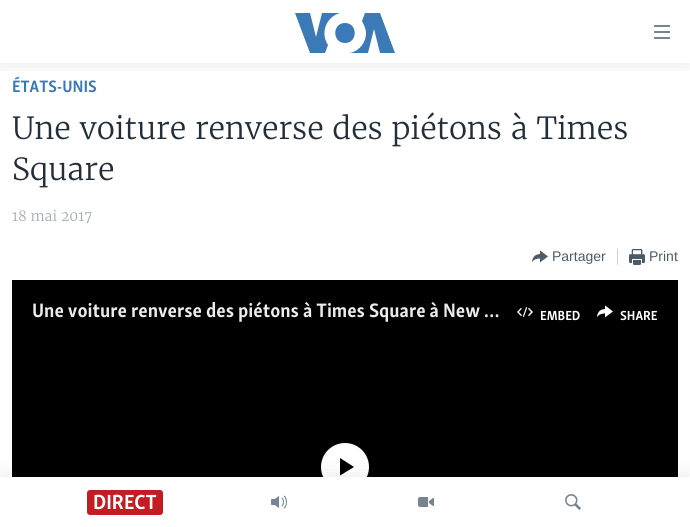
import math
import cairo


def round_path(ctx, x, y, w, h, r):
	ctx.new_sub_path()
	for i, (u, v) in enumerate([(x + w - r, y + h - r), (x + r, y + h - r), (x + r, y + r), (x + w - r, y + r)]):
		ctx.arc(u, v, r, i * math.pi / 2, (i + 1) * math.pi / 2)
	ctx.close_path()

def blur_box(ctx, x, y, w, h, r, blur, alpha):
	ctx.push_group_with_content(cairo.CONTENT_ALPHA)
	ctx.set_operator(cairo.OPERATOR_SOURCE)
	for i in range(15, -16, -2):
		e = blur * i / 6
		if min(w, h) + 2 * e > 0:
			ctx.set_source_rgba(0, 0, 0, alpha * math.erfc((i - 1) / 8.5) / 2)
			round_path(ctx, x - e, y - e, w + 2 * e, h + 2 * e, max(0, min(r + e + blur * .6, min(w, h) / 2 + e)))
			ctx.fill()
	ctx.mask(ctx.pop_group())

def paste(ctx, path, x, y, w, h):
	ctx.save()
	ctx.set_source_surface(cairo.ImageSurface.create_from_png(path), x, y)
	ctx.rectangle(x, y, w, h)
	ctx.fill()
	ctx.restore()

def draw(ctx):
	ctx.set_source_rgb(1, 1, 1)
	ctx.paint()
	ctx.select_font_face('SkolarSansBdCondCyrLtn', cairo.FONT_SLANT_NORMAL, cairo.FONT_WEIGHT_BOLD)
	ctx.set_font_size(17)
	ctx.set_source_rgb(0.227, 0.475, 0.718)
	ctx.move_to(12, 92)
	ctx.show_text('ÉTATS-UNIS')
	ctx.select_font_face('Merriweather Light')
	ctx.set_font_size(30.4)
	ctx.set_source_rgb(0.133, 0.184, 0.227)
	ctx.move_to(12, 139)
	ctx.show_text('Une voiture renverse des piétons à Times')
	ctx.move_to(12, 180)
	ctx.show_text('Square')
	ctx.set_font_size(14)
	ctx.set_source_rgb(0.631, 0.667, 0.706)
	ctx.move_to(12, 221)
	ctx.show_text('18 mai 2017')
	paste(ctx, 'media/1.png', 532, 250, 16, 13)
	ctx.select_font_face('Liberation Sans')
	ctx.set_source_rgb(0.302, 0.353, 0.404)
	ctx.move_to(552, 261)
	ctx.show_text('Partager')
	ctx.set_source_rgb(0.796, 0.82, 0.839)
	ctx.rectangle(617, 249, 1, 16)
	ctx.fill()
	paste(ctx, 'media/2.png', 629, 249, 16, 16)
	ctx.set_source_rgb(0.302, 0.353, 0.404)
	ctx.move_to(649, 261)
	ctx.show_text('Print')
	ctx.set_source_rgb(0, 0, 0)
	ctx.rectangle(12, 280, 666, 197)
	ctx.fill()
	ctx.select_font_face('SkolarSansBdCondCyrLtn', cairo.FONT_SLANT_NORMAL, cairo.FONT_WEIGHT_BOLD)
	ctx.set_font_size(20)
	ctx.set_source_rgb(0.922, 0.922, 0.922)
	ctx.move_to(32, 317)
	ctx.show_text('Une voiture renverse des piétons à Times Square à New …')
	paste(ctx, 'media/3.png', 517, 307, 16, 10)
	ctx.set_font_size(13.5)
	ctx.set_source_rgb(1, 1, 1)
	ctx.move_to(540, 320)
	ctx.show_text('EMBED')
	paste(ctx, 'media/4.png', 597, 305, 16, 13)
	ctx.move_to(620, 320)
	ctx.show_text('SHARE')
	ctx.new_path()
	ctx.arc(345, 467, 24, 0, 2 * math.pi)
	ctx.fill()
	ctx.set_source_rgb(0, 0, 0)
	ctx.new_path()
	ctx.move_to(340, 475.5)
	ctx.line_to(354, 467)
	ctx.line_to(340, 458)
	ctx.close_path()
	ctx.fill()
	ctx.save()
	ctx.rectangle(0, 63, 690, 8)
	ctx.clip()
	ctx.set_source_rgb(0, 0, 0)
	blur_box(ctx, 0, 0, 690, 63, 0, 10, 0.1)
	ctx.restore()
	ctx.set_source_rgb(0.231, 0.475, 0.718)
	ctx.new_path()
	ctx.move_to(328, 45)
	ctx.line_to(325, 53)
	ctx.line_to(310, 53)
	ctx.line_to(295, 13)
	ctx.line_to(310, 13)
	ctx.line_to(316, 37)
	ctx.line_to(322, 13)
	ctx.line_to(340, 13)
	ctx.curve_to(326, 17, 320, 33, 328, 45)
	ctx.close_path()
	ctx.move_to(345, 23)
	ctx.curve_to(332, 23, 332, 43, 345, 43)
	ctx.curve_to(358, 43, 358, 23, 345, 23)
	ctx.close_path()
	ctx.move_to(366, 33)
	ctx.curve_to(366, 43, 359, 51, 350, 53)
	ctx.line_to(368, 53)
	ctx.line_to(374, 29)
	ctx.line_to(380, 53)
	ctx.line_to(395, 53)
	ctx.line_to(380, 13)
	ctx.line_to(365, 13)
	ctx.line_to(362, 21)
	ctx.curve_to(364, 25, 366, 29, 366, 33)
	ctx.close_path()
	ctx.fill()
	paste(ctx, 'media/5.png', 654, 25, 16, 14)
	ctx.set_source_rgb(0, 0, 0)
	blur_box(ctx, 0, 477, 690, 50, 0, 10, 0.1)
	ctx.set_source_rgb(1, 1, 1)
	ctx.rectangle(0, 477, 690, 50)
	ctx.fill()
	ctx.set_source_rgb(0.757, 0.114, 0.133)
	round_path(ctx, 87, 490, 76, 25, 3)
	ctx.fill()
	ctx.set_font_size(21)
	ctx.set_source_rgb(1, 1, 1)
	ctx.move_to(93, 509)
	ctx.show_text('DIRECT')
	paste(ctx, 'media/6.png', 271, 495, 16, 14)
	paste(ctx, 'media/7.png', 418, 497, 16, 10)
	paste(ctx, 'media/8.png', 565, 494, 16, 16)


surface = cairo.ImageSurface(cairo.FORMAT_RGB24, 690, 527)
ctx = cairo.Context(surface)
options = cairo.FontOptions()
options.set_hint_metrics(cairo.HINT_METRICS_OFF)
options.set_hint_style(cairo.HINT_STYLE_NONE)
ctx.set_font_options(options)
ctx.set_miter_limit(4)
draw(ctx)
surface.write_to_png('image.png')
